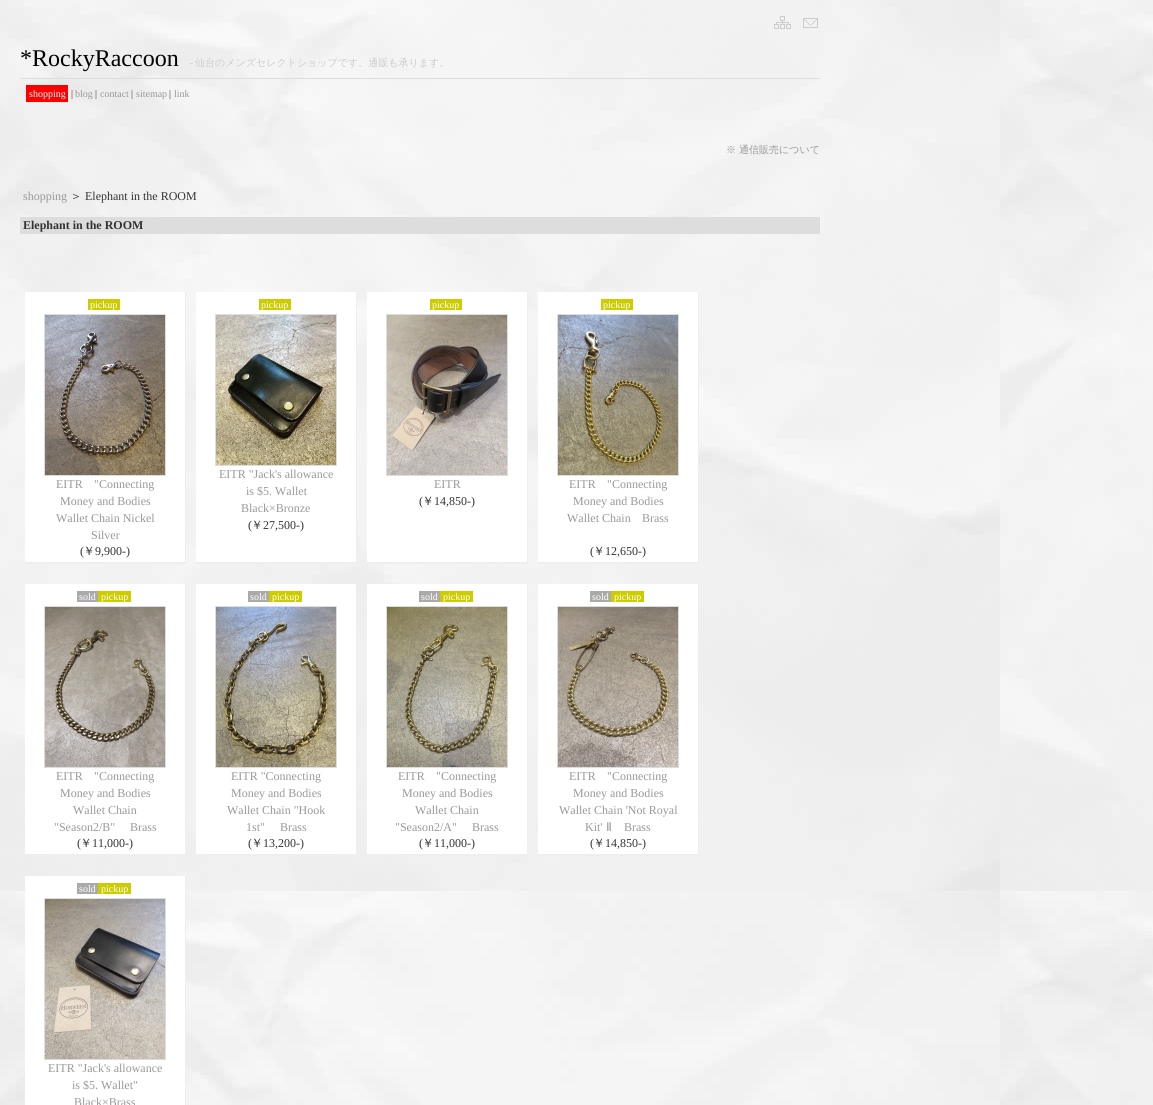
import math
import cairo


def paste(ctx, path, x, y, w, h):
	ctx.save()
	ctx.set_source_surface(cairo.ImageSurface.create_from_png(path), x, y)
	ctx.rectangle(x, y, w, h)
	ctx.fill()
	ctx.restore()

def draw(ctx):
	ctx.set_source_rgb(1, 1, 1)
	ctx.paint()
	paste(ctx, 'media/1.png', 0, 0, 1153, 1105)
	paste(ctx, 'media/2.png', 774, 16, 17, 13)
	paste(ctx, 'media/3.png', 803, 18, 15, 10)
	ctx.select_font_face('Liberation Serif')
	ctx.set_font_size(24)
	ctx.set_source_rgb(0, 0, 0)
	ctx.move_to(20, 66)
	ctx.show_text('*RockyRaccoon')
	ctx.set_font_size(10)
	ctx.set_source_rgb(0.8, 0.8, 0.8)
	ctx.move_to(190, 66)
	ctx.show_text('-')
	ctx.select_font_face('WenQuanYi Zen Hei Medium')
	ctx.move_to(195, 66)
	ctx.show_text('仙台のメンズセレクトショップです。通販も承ります。')
	ctx.set_source_rgb(0.867, 0.867, 0.867)
	ctx.rectangle(20, 78, 800, 1)
	ctx.fill()
	ctx.set_source_rgb(1, 0, 0)
	ctx.rectangle(26, 85, 42, 17)
	ctx.fill()
	ctx.select_font_face('Liberation Serif')
	ctx.set_source_rgb(1, 1, 1)
	ctx.move_to(29, 97)
	ctx.show_text('shopping')
	ctx.set_source_rgb(0.2, 0.2, 0.2)
	ctx.move_to(71, 97)
	ctx.show_text('|')
	ctx.set_source_rgb(0.6, 0.6, 0.6)
	ctx.move_to(75, 97)
	ctx.show_text('blog')
	ctx.set_source_rgb(0.2, 0.2, 0.2)
	ctx.move_to(95, 97)
	ctx.show_text('|')
	ctx.set_source_rgb(0.6, 0.6, 0.6)
	ctx.move_to(100, 97)
	ctx.show_text('contact')
	ctx.set_source_rgb(0.2, 0.2, 0.2)
	ctx.move_to(131, 97)
	ctx.show_text('|')
	ctx.set_source_rgb(0.6, 0.6, 0.6)
	ctx.move_to(136, 97)
	ctx.show_text('sitemap')
	ctx.set_source_rgb(0.2, 0.2, 0.2)
	ctx.move_to(169, 97)
	ctx.show_text('|')
	ctx.set_source_rgb(0.6, 0.6, 0.6)
	ctx.move_to(174, 97)
	ctx.show_text('link')
	ctx.select_font_face('WenQuanYi Zen Hei Medium')
	ctx.move_to(726, 153)
	ctx.show_text('※ 通信販売について')
	ctx.select_font_face('Liberation Serif')
	ctx.set_font_size(12)
	ctx.move_to(23, 200)
	ctx.show_text('shopping')
	ctx.select_font_face('WenQuanYi Zen Hei Medium')
	ctx.set_source_rgb(0.2, 0.2, 0.2)
	ctx.move_to(70, 200)
	ctx.show_text('＞')
	ctx.select_font_face('Liberation Serif')
	ctx.move_to(85, 200)
	ctx.show_text('Elephant in the ROOM')
	ctx.set_source_rgb(0.867, 0.867, 0.867)
	ctx.rectangle(20, 217, 800, 17)
	ctx.fill()
	ctx.select_font_face('Liberation Serif', cairo.FONT_SLANT_NORMAL, cairo.FONT_WEIGHT_BOLD)
	ctx.set_source_rgb(0.2, 0.2, 0.2)
	ctx.move_to(23, 229)
	ctx.show_text('Elephant in the ROOM')
	ctx.set_source_rgb(1, 1, 1)
	ctx.rectangle(25, 292, 160, 270)
	ctx.fill()
	ctx.set_source_rgb(0.933, 0.933, 0.933)
	ctx.rectangle(185, 292, 1, 272)
	ctx.rectangle(25, 562, 161, 2)
	ctx.fill()
	ctx.set_source_rgb(0.8, 0.8, 0)
	ctx.rectangle(88, 299, 32, 11)
	ctx.fill()
	ctx.select_font_face('Liberation Serif')
	ctx.set_font_size(10)
	ctx.set_source_rgb(1, 1, 1)
	ctx.move_to(90, 308)
	ctx.show_text('pickup')
	ctx.rectangle(44.5, 314.5, 121, 161)
	ctx.set_source_rgb(0.867, 0.867, 0.867)
	ctx.set_line_width(1)
	ctx.stroke()
	paste(ctx, 'media/4.png', 45, 315, 120, 160)
	ctx.set_font_size(12)
	ctx.set_source_rgb(0.6, 0.6, 0.6)
	for x, y, s in [
		(56, 488, 'EITR'),
		(94, 488, '"Connecting'),
		(60, 505, 'Money and Bodies'),
		(56, 522, 'Wallet Chain Nickel'),
		(91, 539, 'Silver'),
	]:
		ctx.move_to(x, y)
		ctx.show_text(s)
	ctx.set_source_rgb(0.2, 0.2, 0.2)
	ctx.move_to(80, 555)
	ctx.show_text('(')
	ctx.select_font_face('WenQuanYi Zen Hei Medium')
	ctx.move_to(83, 555)
	ctx.show_text('￥')
	ctx.select_font_face('Liberation Serif')
	ctx.move_to(95, 555)
	ctx.show_text('9,900-)')
	ctx.set_source_rgb(1, 1, 1)
	ctx.rectangle(196, 292, 160, 270)
	ctx.fill()
	ctx.set_source_rgb(0.933, 0.933, 0.933)
	ctx.rectangle(356, 292, 1, 272)
	ctx.rectangle(196, 562, 161, 2)
	ctx.fill()
	ctx.set_source_rgb(0.8, 0.8, 0)
	ctx.rectangle(259, 299, 32, 11)
	ctx.fill()
	ctx.set_font_size(10)
	ctx.set_source_rgb(1, 1, 1)
	ctx.move_to(261, 308)
	ctx.show_text('pickup')
	ctx.rectangle(215.5, 314.5, 121, 151)
	ctx.set_source_rgb(0.867, 0.867, 0.867)
	ctx.stroke()
	paste(ctx, 'media/5.png', 216, 315, 120, 150)
	ctx.set_font_size(12)
	ctx.set_source_rgb(0.6, 0.6, 0.6)
	for x, y, s in [
		(219, 478, 'EITR "Jack\'s allowance'),
		(246, 495, 'is $5. Wallet'),
		(241, 512, 'Black×Bronze'),
	]:
		ctx.move_to(x, y)
		ctx.show_text(s)
	ctx.set_source_rgb(0.2, 0.2, 0.2)
	ctx.move_to(248, 529)
	ctx.show_text('(')
	ctx.select_font_face('WenQuanYi Zen Hei Medium')
	ctx.move_to(251, 529)
	ctx.show_text('￥')
	ctx.select_font_face('Liberation Serif')
	ctx.move_to(263, 529)
	ctx.show_text('27,500-)')
	ctx.set_source_rgb(1, 1, 1)
	ctx.rectangle(367, 292, 160, 270)
	ctx.fill()
	ctx.set_source_rgb(0.933, 0.933, 0.933)
	ctx.rectangle(527, 292, 1, 272)
	ctx.rectangle(367, 562, 161, 2)
	ctx.fill()
	ctx.set_source_rgb(0.8, 0.8, 0)
	ctx.rectangle(430, 299, 32, 11)
	ctx.fill()
	ctx.set_font_size(10)
	ctx.set_source_rgb(1, 1, 1)
	ctx.move_to(432, 308)
	ctx.show_text('pickup')
	ctx.rectangle(386.5, 314.5, 121, 161)
	ctx.set_source_rgb(0.867, 0.867, 0.867)
	ctx.stroke()
	paste(ctx, 'media/6.png', 387, 315, 120, 160)
	ctx.set_font_size(12)
	ctx.set_source_rgb(0.6, 0.6, 0.6)
	ctx.move_to(434, 488)
	ctx.show_text('EITR')
	ctx.set_source_rgb(0.2, 0.2, 0.2)
	ctx.move_to(419, 505)
	ctx.show_text('(')
	ctx.select_font_face('WenQuanYi Zen Hei Medium')
	ctx.move_to(422, 505)
	ctx.show_text('￥')
	ctx.select_font_face('Liberation Serif')
	ctx.move_to(434, 505)
	ctx.show_text('14,850-)')
	ctx.set_source_rgb(1, 1, 1)
	ctx.rectangle(538, 292, 160, 270)
	ctx.fill()
	ctx.set_source_rgb(0.933, 0.933, 0.933)
	ctx.rectangle(698, 292, 1, 272)
	ctx.rectangle(538, 562, 161, 2)
	ctx.fill()
	ctx.set_source_rgb(0.8, 0.8, 0)
	ctx.rectangle(601, 299, 32, 11)
	ctx.fill()
	ctx.set_font_size(10)
	ctx.set_source_rgb(1, 1, 1)
	ctx.move_to(603, 308)
	ctx.show_text('pickup')
	ctx.rectangle(557.5, 314.5, 121, 161)
	ctx.set_source_rgb(0.867, 0.867, 0.867)
	ctx.stroke()
	paste(ctx, 'media/7.png', 558, 315, 120, 160)
	ctx.set_font_size(12)
	ctx.set_source_rgb(0.6, 0.6, 0.6)
	for x, y, s in [
		(569, 488, 'EITR'),
		(607, 488, '"Connecting'),
		(573, 505, 'Money and Bodies'),
		(567, 522, 'Wallet Chain'),
		(642, 522, 'Brass'),
	]:
		ctx.move_to(x, y)
		ctx.show_text(s)
	ctx.set_source_rgb(0.2, 0.2, 0.2)
	ctx.move_to(590, 555)
	ctx.show_text('(')
	ctx.select_font_face('WenQuanYi Zen Hei Medium')
	ctx.move_to(593, 555)
	ctx.show_text('￥')
	ctx.select_font_face('Liberation Serif')
	ctx.move_to(605, 555)
	ctx.show_text('12,650-)')
	ctx.set_source_rgb(1, 1, 1)
	ctx.rectangle(25, 584, 160, 270)
	ctx.fill()
	ctx.set_source_rgb(0.933, 0.933, 0.933)
	ctx.rectangle(185, 584, 1, 247)
	ctx.rectangle(168, 855, 8, 1)
	ctx.fill()
	ctx.set_source_rgb(0.667, 0.667, 0.667)
	ctx.rectangle(77, 591, 21, 11)
	ctx.fill()
	ctx.set_font_size(10)
	ctx.set_source_rgb(1, 1, 1)
	ctx.move_to(79, 600)
	ctx.show_text('sold')
	ctx.set_source_rgb(0.8, 0.8, 0)
	ctx.rectangle(98, 591, 33, 11)
	ctx.fill()
	ctx.set_source_rgb(1, 1, 1)
	ctx.move_to(101, 600)
	ctx.show_text('pickup')
	ctx.rectangle(44.5, 606.5, 121, 161)
	ctx.set_source_rgb(0.867, 0.867, 0.867)
	ctx.stroke()
	paste(ctx, 'media/8.png', 45, 607, 120, 160)
	ctx.set_font_size(12)
	ctx.set_source_rgb(0.6, 0.6, 0.6)
	for x, y, s in [
		(56, 780, 'EITR'),
		(94, 780, '"Connecting'),
		(60, 797, 'Money and Bodies'),
		(73, 814, 'Wallet Chain'),
		(54, 831, '"Season2/B"'),
		(130, 831, 'Brass'),
	]:
		ctx.move_to(x, y)
		ctx.show_text(s)
	ctx.set_source_rgb(0.2, 0.2, 0.2)
	ctx.move_to(77, 847)
	ctx.show_text('(')
	ctx.select_font_face('WenQuanYi Zen Hei Medium')
	ctx.move_to(80, 847)
	ctx.show_text('￥')
	ctx.select_font_face('Liberation Serif')
	ctx.move_to(92, 847)
	ctx.show_text('11,000-)')
	ctx.set_source_rgb(1, 1, 1)
	ctx.rectangle(196, 584, 160, 270)
	ctx.fill()
	ctx.set_source_rgb(0.933, 0.933, 0.933)
	ctx.rectangle(356, 631, 1, 176)
	ctx.rectangle(208, 854, 80, 2)
	ctx.fill()
	ctx.set_source_rgb(0.667, 0.667, 0.667)
	ctx.rectangle(248, 591, 21, 11)
	ctx.fill()
	ctx.set_font_size(10)
	ctx.set_source_rgb(1, 1, 1)
	ctx.move_to(250, 600)
	ctx.show_text('sold')
	ctx.set_source_rgb(0.8, 0.8, 0)
	ctx.rectangle(269, 591, 33, 11)
	ctx.fill()
	ctx.set_source_rgb(1, 1, 1)
	ctx.move_to(272, 600)
	ctx.show_text('pickup')
	ctx.rectangle(215.5, 606.5, 121, 161)
	ctx.set_source_rgb(0.867, 0.867, 0.867)
	ctx.stroke()
	paste(ctx, 'media/9.png', 216, 607, 120, 160)
	ctx.set_font_size(12)
	ctx.set_source_rgb(0.6, 0.6, 0.6)
	for x, y, s in [
		(231, 780, 'EITR "Connecting'),
		(231, 797, 'Money and Bodies'),
		(227, 814, 'Wallet Chain "Hook'),
		(246, 831, '1st"'),
		(280, 831, 'Brass'),
	]:
		ctx.move_to(x, y)
		ctx.show_text(s)
	ctx.set_source_rgb(0.2, 0.2, 0.2)
	ctx.move_to(248, 847)
	ctx.show_text('(')
	ctx.select_font_face('WenQuanYi Zen Hei Medium')
	ctx.move_to(251, 847)
	ctx.show_text('￥')
	ctx.select_font_face('Liberation Serif')
	ctx.move_to(263, 847)
	ctx.show_text('13,200-)')
	ctx.set_source_rgb(1, 1, 1)
	ctx.rectangle(367, 584, 160, 270)
	ctx.fill()
	ctx.set_source_rgb(0.933, 0.933, 0.933)
	ctx.rectangle(527, 584, 1, 255)
	ctx.rectangle(400, 854, 96, 2)
	ctx.fill()
	ctx.set_source_rgb(0.667, 0.667, 0.667)
	ctx.rectangle(419, 591, 21, 11)
	ctx.fill()
	ctx.set_font_size(10)
	ctx.set_source_rgb(1, 1, 1)
	ctx.move_to(421, 600)
	ctx.show_text('sold')
	ctx.set_source_rgb(0.8, 0.8, 0)
	ctx.rectangle(440, 591, 33, 11)
	ctx.fill()
	ctx.set_source_rgb(1, 1, 1)
	ctx.move_to(443, 600)
	ctx.show_text('pickup')
	ctx.rectangle(386.5, 606.5, 121, 161)
	ctx.set_source_rgb(0.867, 0.867, 0.867)
	ctx.stroke()
	paste(ctx, 'media/10.png', 387, 607, 120, 160)
	ctx.set_font_size(12)
	ctx.set_source_rgb(0.6, 0.6, 0.6)
	for x, y, s in [
		(398, 780, 'EITR'),
		(436, 780, '"Connecting'),
		(402, 797, 'Money and Bodies'),
		(415, 814, 'Wallet Chain'),
		(395, 831, '"Season2/A"'),
		(472, 831, 'Brass'),
	]:
		ctx.move_to(x, y)
		ctx.show_text(s)
	ctx.set_source_rgb(0.2, 0.2, 0.2)
	ctx.move_to(419, 847)
	ctx.show_text('(')
	ctx.select_font_face('WenQuanYi Zen Hei Medium')
	ctx.move_to(422, 847)
	ctx.show_text('￥')
	ctx.select_font_face('Liberation Serif')
	ctx.move_to(434, 847)
	ctx.show_text('11,000-)')
	ctx.set_source_rgb(1, 1, 1)
	ctx.rectangle(538, 584, 160, 270)
	ctx.fill()
	ctx.set_source_rgb(0.933, 0.933, 0.933)
	ctx.rectangle(698, 584, 1, 272)
	ctx.rectangle(538, 854, 161, 2)
	ctx.fill()
	ctx.set_source_rgb(0.667, 0.667, 0.667)
	ctx.rectangle(590, 591, 21, 11)
	ctx.fill()
	ctx.set_font_size(10)
	ctx.set_source_rgb(1, 1, 1)
	ctx.move_to(592, 600)
	ctx.show_text('sold')
	ctx.set_source_rgb(0.8, 0.8, 0)
	ctx.rectangle(611, 591, 33, 11)
	ctx.fill()
	ctx.set_source_rgb(1, 1, 1)
	ctx.move_to(614, 600)
	ctx.show_text('pickup')
	ctx.rectangle(557.5, 606.5, 121, 161)
	ctx.set_source_rgb(0.867, 0.867, 0.867)
	ctx.stroke()
	paste(ctx, 'media/11.png', 558, 607, 120, 160)
	ctx.set_font_size(12)
	ctx.set_source_rgb(0.6, 0.6, 0.6)
	for x, y, s in [
		(569, 780, 'EITR'),
		(607, 780, '"Connecting'),
		(573, 797, 'Money and Bodies'),
		(559, 814, 'Wallet Chain \'Not Royal'),
		(585, 831, 'Kit\''),
	]:
		ctx.move_to(x, y)
		ctx.show_text(s)
	ctx.select_font_face('DejaVu Sans')
	ctx.move_to(606, 831)
	ctx.show_text('Ⅱ')
	ctx.select_font_face('Liberation Serif')
	ctx.move_to(624, 831)
	ctx.show_text('Brass')
	ctx.set_source_rgb(0.2, 0.2, 0.2)
	ctx.move_to(590, 847)
	ctx.show_text('(')
	ctx.select_font_face('WenQuanYi Zen Hei Medium')
	ctx.move_to(593, 847)
	ctx.show_text('￥')
	ctx.select_font_face('Liberation Serif')
	ctx.move_to(605, 847)
	ctx.show_text('14,850-)')
	ctx.set_source_rgb(1, 1, 1)
	ctx.rectangle(25, 876, 160, 229)
	ctx.fill()
	ctx.set_source_rgb(0.933, 0.933, 0.933)
	ctx.rectangle(185, 876, 1, 229)
	ctx.fill()
	ctx.set_source_rgb(0.667, 0.667, 0.667)
	ctx.rectangle(77, 883, 21, 11)
	ctx.fill()
	ctx.set_font_size(10)
	ctx.set_source_rgb(1, 1, 1)
	ctx.move_to(79, 892)
	ctx.show_text('sold')
	ctx.set_source_rgb(0.8, 0.8, 0)
	ctx.rectangle(98, 883, 33, 11)
	ctx.fill()
	ctx.set_source_rgb(1, 1, 1)
	ctx.move_to(101, 892)
	ctx.show_text('pickup')
	ctx.rectangle(44.5, 898.5, 121, 161)
	ctx.set_source_rgb(0.867, 0.867, 0.867)
	ctx.stroke()
	paste(ctx, 'media/12.png', 45, 899, 120, 160)
	ctx.set_font_size(12)
	ctx.set_source_rgb(0.6, 0.6, 0.6)
	for x, y, s in [
		(48, 1072, 'EITR "Jack\'s allowance'),
		(72, 1089, 'is $5. Wallet"'),
		(74, 1106, 'Black×Brass'),
	]:
		ctx.move_to(x, y)
		ctx.show_text(s)


surface = cairo.ImageSurface(cairo.FORMAT_RGB24, 1153, 1105)
ctx = cairo.Context(surface)
options = cairo.FontOptions()
options.set_hint_metrics(cairo.HINT_METRICS_OFF)
options.set_hint_style(cairo.HINT_STYLE_NONE)
ctx.set_font_options(options)
ctx.set_miter_limit(4)
draw(ctx)
surface.write_to_png('image.png')
